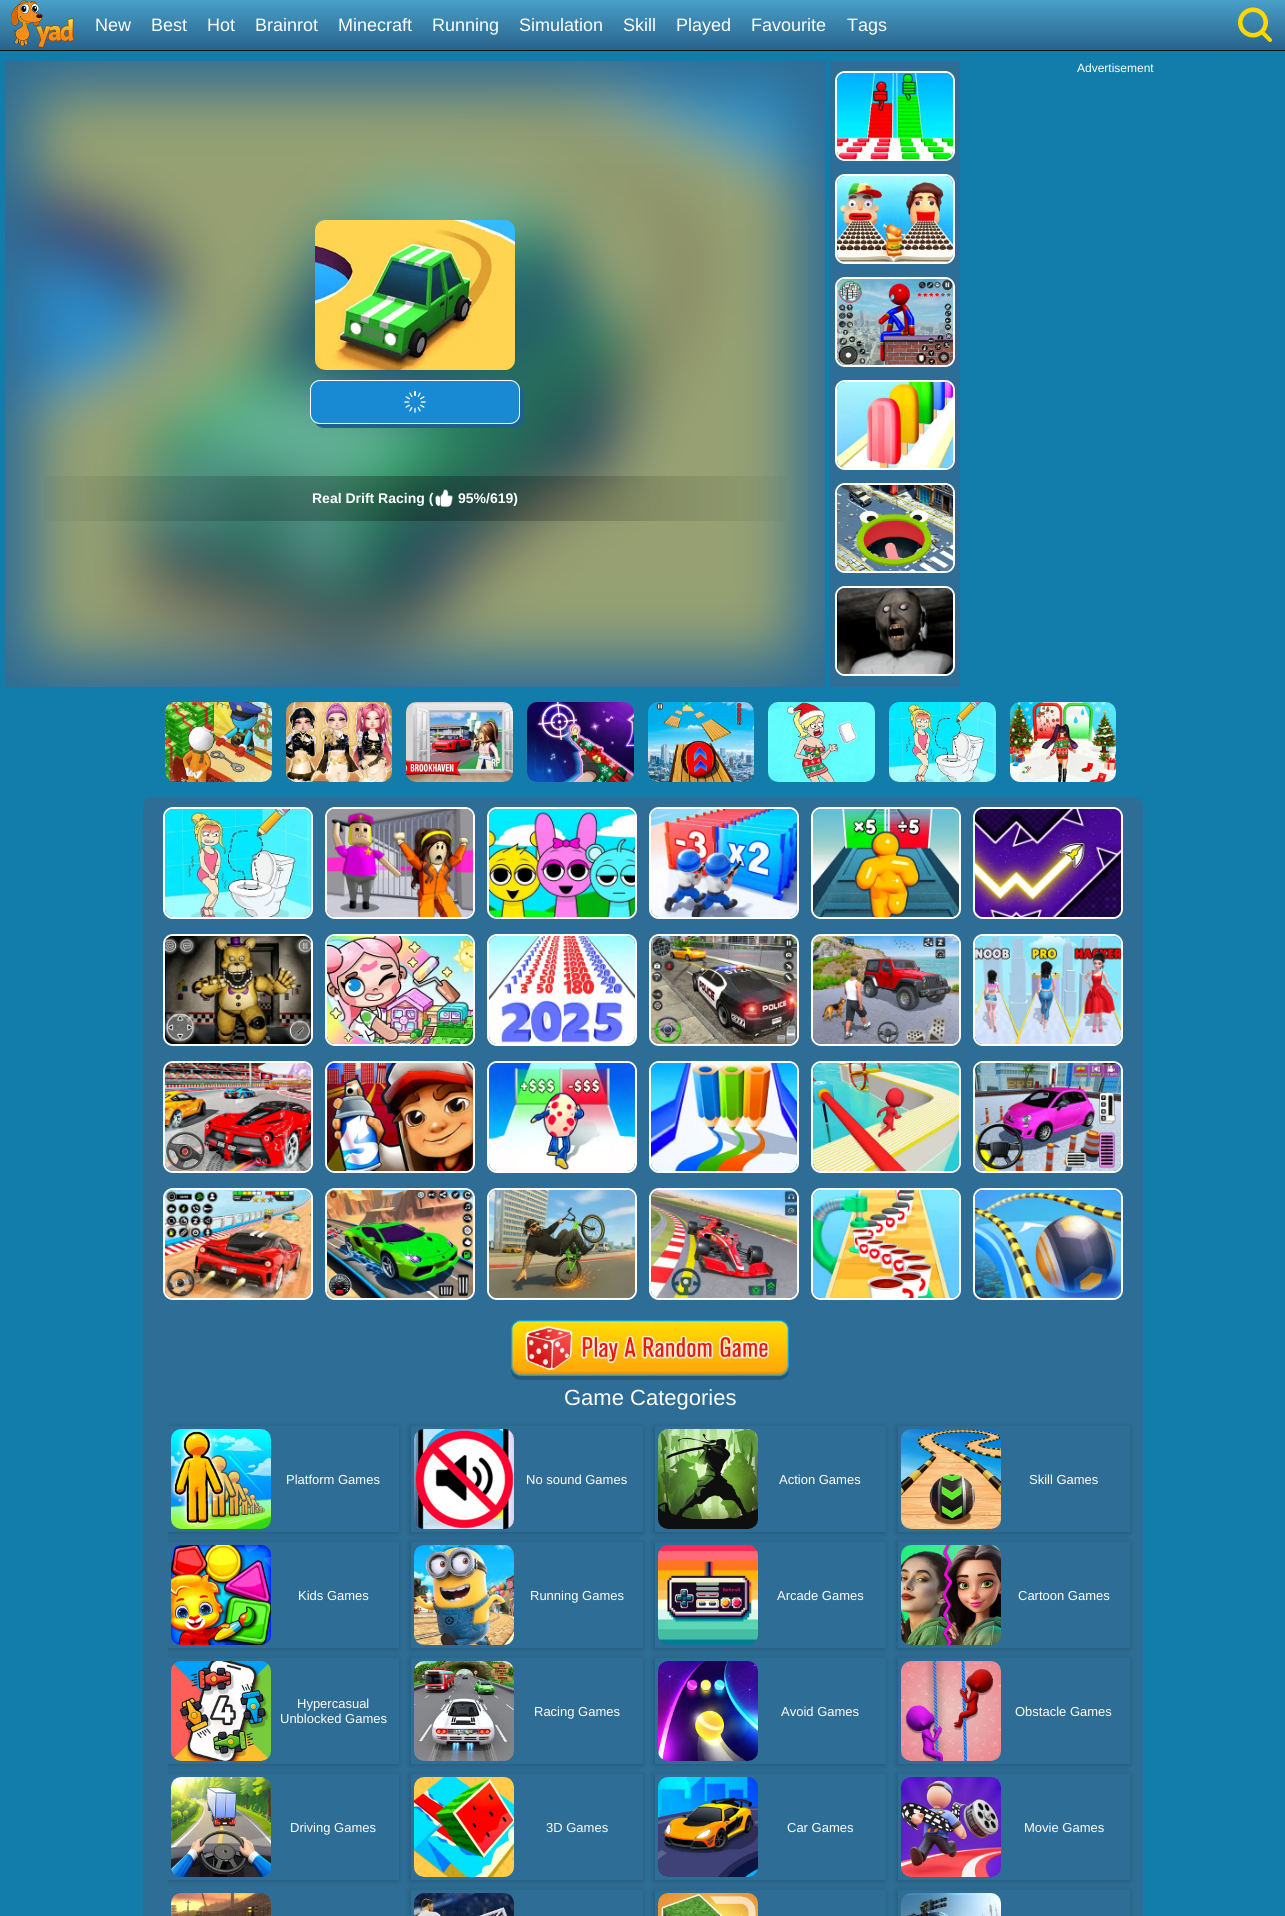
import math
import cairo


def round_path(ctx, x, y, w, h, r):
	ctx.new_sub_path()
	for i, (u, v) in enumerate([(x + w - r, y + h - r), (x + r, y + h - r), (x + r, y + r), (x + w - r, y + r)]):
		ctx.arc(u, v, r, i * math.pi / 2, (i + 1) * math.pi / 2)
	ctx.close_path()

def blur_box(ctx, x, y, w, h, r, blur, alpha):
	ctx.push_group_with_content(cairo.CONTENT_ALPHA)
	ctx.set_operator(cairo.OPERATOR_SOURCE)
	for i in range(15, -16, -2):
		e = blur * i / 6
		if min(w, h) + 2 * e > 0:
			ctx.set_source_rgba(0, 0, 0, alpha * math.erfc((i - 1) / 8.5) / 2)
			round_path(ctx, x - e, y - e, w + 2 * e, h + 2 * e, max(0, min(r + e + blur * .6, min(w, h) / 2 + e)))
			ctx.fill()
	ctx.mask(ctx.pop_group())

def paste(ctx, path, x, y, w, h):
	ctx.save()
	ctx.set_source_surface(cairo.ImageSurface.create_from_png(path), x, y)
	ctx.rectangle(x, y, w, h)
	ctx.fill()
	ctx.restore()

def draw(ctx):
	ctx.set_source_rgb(0.071, 0.49, 0.671)
	ctx.paint()
	gradient = cairo.LinearGradient(643, 0, 643, 50)
	gradient.add_color_stop_rgba(0, 0.282, 0.627, 0.788, 1)
	gradient.add_color_stop_rgba(1, 0.161, 0.388, 0.545, 1)
	ctx.set_source(gradient)
	ctx.rectangle(0, 0, 1285, 50)
	ctx.fill()
	ctx.set_source_rgb(0.067, 0.067, 0.067)
	ctx.rectangle(0, 50, 1285, 1)
	ctx.fill()
	paste(ctx, 'media/1.png', 11, 0, 63, 48)
	ctx.select_font_face('Liberation Sans')
	ctx.set_font_size(18)
	ctx.set_source_rgb(1, 1, 1)
	for x, y, s in [
		(95, 31, 'New'),
		(151, 31, 'Best'),
		(207, 31, 'Hot'),
		(255, 31, 'Brainrot'),
		(338, 31, 'Minecraft'),
		(432, 31, 'Running'),
		(519, 31, 'Simulation'),
		(623, 31, 'Skill'),
		(676, 31, 'Played'),
		(751, 31, 'Favourite'),
		(847, 31, 'Tags'),
	]:
		ctx.move_to(x, y)
		ctx.show_text(s)
	paste(ctx, 'media/2.png', 1238, 7, 34, 35)
	ctx.set_font_size(12)
	ctx.move_to(1077, 72)
	ctx.show_text('Advertisement')
	ctx.set_source_rgb(0.18, 0.427, 0.584)
	ctx.rectangle(5, 61, 820, 626)
	ctx.fill()
	paste(ctx, 'media/3.png', 5, 61, 820, 626)
	paste(ctx, 'media/4.png', 315, 220, 200, 150)
	ctx.set_source_rgb(0.125, 0.38, 0.537)
	ctx.new_path()
	ctx.move_to(315, 423)
	ctx.curve_to(317, 426, 320, 428, 324, 428)
	ctx.line_to(514, 428)
	ctx.curve_to(520, 428, 524, 424, 524, 418)
	ctx.line_to(524, 394)
	ctx.curve_to(524, 390, 522, 387, 519, 385)
	ctx.curve_to(520, 387, 520, 388, 520, 390)
	ctx.line_to(520, 414)
	ctx.curve_to(520, 420, 516, 424, 510, 424)
	ctx.line_to(320, 424)
	ctx.curve_to(318, 424, 317, 424, 315, 423)
	ctx.close_path()
	ctx.fill()
	ctx.set_source_rgb(0.094, 0.541, 0.827)
	round_path(ctx, 310.5, 380.5, 209, 43, 9.5)
	ctx.fill_preserve()
	ctx.set_source_rgb(1, 1, 1)
	ctx.set_line_width(1)
	ctx.stroke()
	paste(ctx, 'media/5.png', 404, 391, 22, 22)
	gradient = cairo.LinearGradient(15, 499, 815, 499)
	gradient.add_color_stop_rgba(0, 0, 0, 0, 0)
	gradient.add_color_stop_rgba(0.5, 0, 0, 0, 0.3)
	gradient.add_color_stop_rgba(1, 0, 0, 0, 0)
	ctx.set_source(gradient)
	ctx.rectangle(44, 476, 742, 45)
	ctx.fill()
	ctx.select_font_face('Liberation Sans', cairo.FONT_SLANT_NORMAL, cairo.FONT_WEIGHT_BOLD)
	ctx.set_font_size(14)
	ctx.set_source_rgb(1, 1, 1)
	ctx.move_to(312, 503)
	ctx.show_text('Real Drift Racing (')
	paste(ctx, 'media/6.png', 435, 489, 18, 19)
	ctx.move_to(458, 503)
	ctx.show_text('95%/619)')
	ctx.set_source_rgb(0.18, 0.427, 0.584)
	ctx.rectangle(830, 61, 130, 626)
	ctx.fill()
	round_path(ctx, 836, 72, 118, 88, 9)
	ctx.set_source_rgb(1, 1, 1)
	ctx.set_line_width(2)
	ctx.stroke()
	paste(ctx, 'media/7.png', 837, 73, 116, 86)
	round_path(ctx, 836, 175, 118, 88, 9)
	ctx.stroke()
	paste(ctx, 'media/8.png', 837, 176, 116, 86)
	round_path(ctx, 836, 278, 118, 88, 9)
	ctx.stroke()
	paste(ctx, 'media/9.png', 837, 279, 116, 86)
	round_path(ctx, 836, 381, 118, 88, 9)
	ctx.stroke()
	paste(ctx, 'media/10.png', 837, 382, 116, 86)
	round_path(ctx, 836, 484, 118, 88, 9)
	ctx.stroke()
	paste(ctx, 'media/11.png', 837, 485, 116, 86)
	round_path(ctx, 836, 587, 118, 88, 9)
	ctx.stroke()
	paste(ctx, 'media/12.png', 837, 588, 116, 86)
	paste(ctx, 'media/13.png', 165, 702, 951, 80)
	ctx.set_source_rgb(0.18, 0.427, 0.584)
	round_path(ctx, 143, 797, 1000, 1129, 10)
	ctx.fill()
	round_path(ctx, 164, 808, 148, 110, 9)
	ctx.set_source_rgb(1, 1, 1)
	ctx.stroke()
	paste(ctx, 'media/14.png', 165, 809, 146, 108)
	round_path(ctx, 326, 808, 148, 110, 9)
	ctx.stroke()
	paste(ctx, 'media/15.png', 327, 809, 146, 108)
	round_path(ctx, 488, 808, 148, 110, 9)
	ctx.stroke()
	paste(ctx, 'media/16.png', 489, 809, 146, 108)
	round_path(ctx, 650, 808, 148, 110, 9)
	ctx.stroke()
	paste(ctx, 'media/17.png', 651, 809, 146, 108)
	round_path(ctx, 812, 808, 148, 110, 9)
	ctx.stroke()
	paste(ctx, 'media/18.png', 813, 809, 146, 108)
	round_path(ctx, 974, 808, 148, 110, 9)
	ctx.stroke()
	paste(ctx, 'media/19.png', 975, 809, 146, 108)
	round_path(ctx, 164, 935, 148, 110, 9)
	ctx.stroke()
	paste(ctx, 'media/20.png', 165, 936, 146, 108)
	round_path(ctx, 326, 935, 148, 110, 9)
	ctx.stroke()
	paste(ctx, 'media/21.png', 327, 936, 146, 108)
	round_path(ctx, 488, 935, 148, 110, 9)
	ctx.stroke()
	paste(ctx, 'media/22.png', 489, 936, 146, 108)
	round_path(ctx, 650, 935, 148, 110, 9)
	ctx.stroke()
	paste(ctx, 'media/23.png', 651, 936, 146, 108)
	round_path(ctx, 812, 935, 148, 110, 9)
	ctx.stroke()
	paste(ctx, 'media/24.png', 813, 936, 146, 108)
	round_path(ctx, 974, 935, 148, 110, 9)
	ctx.stroke()
	paste(ctx, 'media/25.png', 975, 936, 146, 108)
	round_path(ctx, 164, 1062, 148, 110, 9)
	ctx.stroke()
	paste(ctx, 'media/26.png', 165, 1063, 146, 108)
	round_path(ctx, 326, 1062, 148, 110, 9)
	ctx.stroke()
	paste(ctx, 'media/27.png', 327, 1063, 146, 108)
	round_path(ctx, 488, 1062, 148, 110, 9)
	ctx.stroke()
	paste(ctx, 'media/28.png', 489, 1063, 146, 108)
	round_path(ctx, 650, 1062, 148, 110, 9)
	ctx.stroke()
	paste(ctx, 'media/29.png', 651, 1063, 146, 108)
	round_path(ctx, 812, 1062, 148, 110, 9)
	ctx.stroke()
	paste(ctx, 'media/30.png', 813, 1063, 146, 108)
	round_path(ctx, 974, 1062, 148, 110, 9)
	ctx.stroke()
	paste(ctx, 'media/31.png', 975, 1063, 146, 108)
	round_path(ctx, 164, 1189, 148, 110, 9)
	ctx.stroke()
	paste(ctx, 'media/32.png', 165, 1190, 146, 108)
	round_path(ctx, 326, 1189, 148, 110, 9)
	ctx.stroke()
	paste(ctx, 'media/33.png', 327, 1190, 146, 108)
	round_path(ctx, 488, 1189, 148, 110, 9)
	ctx.stroke()
	paste(ctx, 'media/34.png', 489, 1190, 146, 108)
	round_path(ctx, 650, 1189, 148, 110, 9)
	ctx.stroke()
	paste(ctx, 'media/35.png', 651, 1190, 146, 108)
	round_path(ctx, 812, 1189, 148, 110, 9)
	ctx.stroke()
	paste(ctx, 'media/36.png', 813, 1190, 146, 108)
	round_path(ctx, 974, 1189, 148, 110, 9)
	ctx.stroke()
	paste(ctx, 'media/37.png', 975, 1190, 146, 108)
	paste(ctx, 'media/38.png', 511, 1320, 278, 60)
	ctx.select_font_face('Liberation Sans')
	ctx.set_font_size(22)
	ctx.move_to(564, 1405)
	ctx.show_text('Game Categories')
	ctx.save()
	ctx.rectangle(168, 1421, 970, 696)
	ctx.clip()
	ctx.set_fill_rule(cairo.FILL_RULE_EVEN_ODD)
	ctx.new_path()
	ctx.move_to(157, 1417)
	ctx.line_to(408, 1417)
	ctx.line_to(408, 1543)
	ctx.line_to(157, 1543)
	ctx.close_path()
	ctx.move_to(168, 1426)
	ctx.line_to(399, 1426)
	ctx.line_to(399, 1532)
	ctx.line_to(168, 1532)
	ctx.close_path()
	ctx.clip()
	ctx.set_source_rgb(0, 0, 0)
	blur_box(ctx, 167, 1427, 231, 106, 0, 3, 0.2)
	ctx.restore()
	paste(ctx, 'media/39.png', 171, 1429, 100, 100)
	ctx.set_font_size(13)
	ctx.move_to(286, 1484)
	ctx.show_text('Platform Games')
	ctx.save()
	ctx.set_fill_rule(cairo.FILL_RULE_EVEN_ODD)
	ctx.new_path()
	ctx.move_to(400, 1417)
	ctx.line_to(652, 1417)
	ctx.line_to(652, 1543)
	ctx.line_to(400, 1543)
	ctx.close_path()
	ctx.move_to(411, 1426)
	ctx.line_to(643, 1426)
	ctx.line_to(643, 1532)
	ctx.line_to(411, 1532)
	ctx.close_path()
	ctx.clip()
	ctx.set_source_rgb(0, 0, 0)
	blur_box(ctx, 410, 1427, 232, 106, 0, 3, 0.2)
	ctx.restore()
	paste(ctx, 'media/40.png', 414, 1429, 100, 100)
	ctx.move_to(526, 1484)
	ctx.show_text('No sound Games')
	ctx.save()
	ctx.set_fill_rule(cairo.FILL_RULE_EVEN_ODD)
	ctx.new_path()
	ctx.move_to(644, 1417)
	ctx.line_to(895, 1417)
	ctx.line_to(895, 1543)
	ctx.line_to(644, 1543)
	ctx.close_path()
	ctx.move_to(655, 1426)
	ctx.line_to(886, 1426)
	ctx.line_to(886, 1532)
	ctx.line_to(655, 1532)
	ctx.close_path()
	ctx.clip()
	ctx.set_source_rgb(0, 0, 0)
	blur_box(ctx, 654, 1427, 231, 106, 0, 3, 0.2)
	ctx.restore()
	paste(ctx, 'media/41.png', 658, 1429, 100, 100)
	ctx.move_to(779, 1484)
	ctx.show_text('Action Games')
	ctx.save()
	ctx.set_fill_rule(cairo.FILL_RULE_EVEN_ODD)
	ctx.new_path()
	ctx.move_to(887, 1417)
	ctx.line_to(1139, 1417)
	ctx.line_to(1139, 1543)
	ctx.line_to(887, 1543)
	ctx.close_path()
	ctx.move_to(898, 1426)
	ctx.line_to(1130, 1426)
	ctx.line_to(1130, 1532)
	ctx.line_to(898, 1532)
	ctx.close_path()
	ctx.clip()
	ctx.set_source_rgb(0, 0, 0)
	blur_box(ctx, 897, 1427, 232, 106, 0, 3, 0.2)
	ctx.restore()
	paste(ctx, 'media/42.png', 901, 1429, 100, 100)
	ctx.move_to(1029, 1484)
	ctx.show_text('Skill Games')
	ctx.save()
	ctx.rectangle(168, 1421, 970, 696)
	ctx.clip()
	ctx.set_fill_rule(cairo.FILL_RULE_EVEN_ODD)
	ctx.new_path()
	ctx.move_to(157, 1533)
	ctx.line_to(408, 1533)
	ctx.line_to(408, 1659)
	ctx.line_to(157, 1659)
	ctx.close_path()
	ctx.move_to(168, 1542)
	ctx.line_to(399, 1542)
	ctx.line_to(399, 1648)
	ctx.line_to(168, 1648)
	ctx.close_path()
	ctx.clip()
	ctx.set_source_rgb(0, 0, 0)
	blur_box(ctx, 167, 1543, 231, 106, 0, 3, 0.2)
	ctx.restore()
	paste(ctx, 'media/43.png', 171, 1545, 100, 100)
	ctx.move_to(298, 1600)
	ctx.show_text('Kids Games')
	ctx.save()
	ctx.set_fill_rule(cairo.FILL_RULE_EVEN_ODD)
	ctx.new_path()
	ctx.move_to(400, 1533)
	ctx.line_to(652, 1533)
	ctx.line_to(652, 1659)
	ctx.line_to(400, 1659)
	ctx.close_path()
	ctx.move_to(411, 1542)
	ctx.line_to(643, 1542)
	ctx.line_to(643, 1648)
	ctx.line_to(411, 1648)
	ctx.close_path()
	ctx.clip()
	ctx.set_source_rgb(0, 0, 0)
	blur_box(ctx, 410, 1543, 232, 106, 0, 3, 0.2)
	ctx.restore()
	paste(ctx, 'media/44.png', 414, 1545, 100, 100)
	ctx.move_to(530, 1600)
	ctx.show_text('Running Games')
	ctx.save()
	ctx.set_fill_rule(cairo.FILL_RULE_EVEN_ODD)
	ctx.new_path()
	ctx.move_to(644, 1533)
	ctx.line_to(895, 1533)
	ctx.line_to(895, 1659)
	ctx.line_to(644, 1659)
	ctx.close_path()
	ctx.move_to(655, 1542)
	ctx.line_to(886, 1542)
	ctx.line_to(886, 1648)
	ctx.line_to(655, 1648)
	ctx.close_path()
	ctx.clip()
	ctx.set_source_rgb(0, 0, 0)
	blur_box(ctx, 654, 1543, 231, 106, 0, 3, 0.2)
	ctx.restore()
	paste(ctx, 'media/45.png', 658, 1545, 100, 100)
	ctx.move_to(777, 1600)
	ctx.show_text('Arcade Games')
	ctx.save()
	ctx.set_fill_rule(cairo.FILL_RULE_EVEN_ODD)
	ctx.new_path()
	ctx.move_to(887, 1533)
	ctx.line_to(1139, 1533)
	ctx.line_to(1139, 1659)
	ctx.line_to(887, 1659)
	ctx.close_path()
	ctx.move_to(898, 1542)
	ctx.line_to(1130, 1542)
	ctx.line_to(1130, 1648)
	ctx.line_to(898, 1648)
	ctx.close_path()
	ctx.clip()
	ctx.set_source_rgb(0, 0, 0)
	blur_box(ctx, 897, 1543, 232, 106, 0, 3, 0.2)
	ctx.restore()
	paste(ctx, 'media/46.png', 901, 1545, 100, 100)
	ctx.move_to(1018, 1600)
	ctx.show_text('Cartoon Games')
	ctx.save()
	ctx.rectangle(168, 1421, 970, 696)
	ctx.clip()
	ctx.set_fill_rule(cairo.FILL_RULE_EVEN_ODD)
	ctx.new_path()
	ctx.move_to(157, 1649)
	ctx.line_to(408, 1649)
	ctx.line_to(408, 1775)
	ctx.line_to(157, 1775)
	ctx.close_path()
	ctx.move_to(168, 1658)
	ctx.line_to(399, 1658)
	ctx.line_to(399, 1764)
	ctx.line_to(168, 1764)
	ctx.close_path()
	ctx.clip()
	ctx.set_source_rgb(0, 0, 0)
	blur_box(ctx, 167, 1659, 231, 106, 0, 3, 0.2)
	ctx.restore()
	paste(ctx, 'media/47.png', 171, 1661, 100, 100)
	ctx.move_to(297, 1708)
	ctx.show_text('Hypercasual')
	ctx.move_to(280, 1723)
	ctx.show_text('Unblocked Games')
	ctx.save()
	ctx.set_fill_rule(cairo.FILL_RULE_EVEN_ODD)
	ctx.new_path()
	ctx.move_to(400, 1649)
	ctx.line_to(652, 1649)
	ctx.line_to(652, 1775)
	ctx.line_to(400, 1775)
	ctx.close_path()
	ctx.move_to(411, 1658)
	ctx.line_to(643, 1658)
	ctx.line_to(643, 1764)
	ctx.line_to(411, 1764)
	ctx.close_path()
	ctx.clip()
	ctx.set_source_rgb(0, 0, 0)
	blur_box(ctx, 410, 1659, 232, 106, 0, 3, 0.2)
	ctx.restore()
	paste(ctx, 'media/48.png', 414, 1661, 100, 100)
	ctx.move_to(534, 1716)
	ctx.show_text('Racing Games')
	ctx.save()
	ctx.set_fill_rule(cairo.FILL_RULE_EVEN_ODD)
	ctx.new_path()
	ctx.move_to(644, 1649)
	ctx.line_to(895, 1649)
	ctx.line_to(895, 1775)
	ctx.line_to(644, 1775)
	ctx.close_path()
	ctx.move_to(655, 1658)
	ctx.line_to(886, 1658)
	ctx.line_to(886, 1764)
	ctx.line_to(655, 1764)
	ctx.close_path()
	ctx.clip()
	ctx.set_source_rgb(0, 0, 0)
	blur_box(ctx, 654, 1659, 231, 106, 0, 3, 0.2)
	ctx.restore()
	paste(ctx, 'media/49.png', 658, 1661, 100, 100)
	ctx.move_to(781, 1716)
	ctx.show_text('Avoid Games')
	ctx.save()
	ctx.set_fill_rule(cairo.FILL_RULE_EVEN_ODD)
	ctx.new_path()
	ctx.move_to(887, 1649)
	ctx.line_to(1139, 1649)
	ctx.line_to(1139, 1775)
	ctx.line_to(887, 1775)
	ctx.close_path()
	ctx.move_to(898, 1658)
	ctx.line_to(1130, 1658)
	ctx.line_to(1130, 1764)
	ctx.line_to(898, 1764)
	ctx.close_path()
	ctx.clip()
	ctx.set_source_rgb(0, 0, 0)
	blur_box(ctx, 897, 1659, 232, 106, 0, 3, 0.2)
	ctx.restore()
	paste(ctx, 'media/50.png', 901, 1661, 100, 100)
	ctx.move_to(1015, 1716)
	ctx.show_text('Obstacle Games')
	ctx.save()
	ctx.rectangle(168, 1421, 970, 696)
	ctx.clip()
	ctx.set_fill_rule(cairo.FILL_RULE_EVEN_ODD)
	ctx.new_path()
	ctx.move_to(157, 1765)
	ctx.line_to(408, 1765)
	ctx.line_to(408, 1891)
	ctx.line_to(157, 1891)
	ctx.close_path()
	ctx.move_to(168, 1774)
	ctx.line_to(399, 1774)
	ctx.line_to(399, 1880)
	ctx.line_to(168, 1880)
	ctx.close_path()
	ctx.clip()
	ctx.set_source_rgb(0, 0, 0)
	blur_box(ctx, 167, 1775, 231, 106, 0, 3, 0.2)
	ctx.restore()
	paste(ctx, 'media/51.png', 171, 1777, 100, 100)
	ctx.move_to(290, 1832)
	ctx.show_text('Driving Games')
	ctx.save()
	ctx.set_fill_rule(cairo.FILL_RULE_EVEN_ODD)
	ctx.new_path()
	ctx.move_to(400, 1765)
	ctx.line_to(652, 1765)
	ctx.line_to(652, 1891)
	ctx.line_to(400, 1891)
	ctx.close_path()
	ctx.move_to(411, 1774)
	ctx.line_to(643, 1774)
	ctx.line_to(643, 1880)
	ctx.line_to(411, 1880)
	ctx.close_path()
	ctx.clip()
	ctx.set_source_rgb(0, 0, 0)
	blur_box(ctx, 410, 1775, 232, 106, 0, 3, 0.2)
	ctx.restore()
	paste(ctx, 'media/52.png', 414, 1777, 100, 100)
	ctx.move_to(546, 1832)
	ctx.show_text('3D Games')
	ctx.save()
	ctx.set_fill_rule(cairo.FILL_RULE_EVEN_ODD)
	ctx.new_path()
	ctx.move_to(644, 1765)
	ctx.line_to(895, 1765)
	ctx.line_to(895, 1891)
	ctx.line_to(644, 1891)
	ctx.close_path()
	ctx.move_to(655, 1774)
	ctx.line_to(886, 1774)
	ctx.line_to(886, 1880)
	ctx.line_to(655, 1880)
	ctx.close_path()
	ctx.clip()
	ctx.set_source_rgb(0, 0, 0)
	blur_box(ctx, 654, 1775, 231, 106, 0, 3, 0.2)
	ctx.restore()
	paste(ctx, 'media/53.png', 658, 1777, 100, 100)
	ctx.move_to(787, 1832)
	ctx.show_text('Car Games')
	ctx.save()
	ctx.set_fill_rule(cairo.FILL_RULE_EVEN_ODD)
	ctx.new_path()
	ctx.move_to(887, 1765)
	ctx.line_to(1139, 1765)
	ctx.line_to(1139, 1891)
	ctx.line_to(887, 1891)
	ctx.close_path()
	ctx.move_to(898, 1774)
	ctx.line_to(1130, 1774)
	ctx.line_to(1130, 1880)
	ctx.line_to(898, 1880)
	ctx.close_path()
	ctx.clip()
	ctx.set_source_rgb(0, 0, 0)
	blur_box(ctx, 897, 1775, 232, 106, 0, 3, 0.2)
	ctx.restore()
	paste(ctx, 'media/54.png', 901, 1777, 100, 100)
	ctx.move_to(1024, 1832)
	ctx.show_text('Movie Games')
	paste(ctx, 'media/55.png', 171, 1893, 100, 23)
	ctx.save()
	ctx.set_fill_rule(cairo.FILL_RULE_EVEN_ODD)
	ctx.new_path()
	ctx.move_to(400, 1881)
	ctx.line_to(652, 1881)
	ctx.line_to(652, 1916)
	ctx.line_to(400, 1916)
	ctx.close_path()
	ctx.move_to(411, 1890)
	ctx.line_to(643, 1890)
	ctx.line_to(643, 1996)
	ctx.line_to(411, 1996)
	ctx.close_path()
	ctx.clip()
	ctx.set_source_rgb(0, 0, 0)
	blur_box(ctx, 410, 1891, 232, 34, 0, 3, 0.2)
	ctx.restore()
	paste(ctx, 'media/56.png', 414, 1893, 100, 23)
	ctx.save()
	ctx.set_fill_rule(cairo.FILL_RULE_EVEN_ODD)
	ctx.new_path()
	ctx.move_to(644, 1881)
	ctx.line_to(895, 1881)
	ctx.line_to(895, 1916)
	ctx.line_to(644, 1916)
	ctx.close_path()
	ctx.move_to(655, 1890)
	ctx.line_to(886, 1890)
	ctx.line_to(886, 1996)
	ctx.line_to(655, 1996)
	ctx.close_path()
	ctx.clip()
	ctx.set_source_rgb(0, 0, 0)
	blur_box(ctx, 654, 1891, 231, 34, 0, 3, 0.2)
	ctx.restore()
	paste(ctx, 'media/57.png', 658, 1893, 100, 23)
	ctx.save()
	ctx.set_fill_rule(cairo.FILL_RULE_EVEN_ODD)
	ctx.new_path()
	ctx.move_to(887, 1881)
	ctx.line_to(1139, 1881)
	ctx.line_to(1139, 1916)
	ctx.line_to(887, 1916)
	ctx.close_path()
	ctx.move_to(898, 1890)
	ctx.line_to(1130, 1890)
	ctx.line_to(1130, 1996)
	ctx.line_to(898, 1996)
	ctx.close_path()
	ctx.clip()
	ctx.set_source_rgb(0, 0, 0)
	blur_box(ctx, 897, 1891, 232, 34, 0, 3, 0.2)
	ctx.restore()
	paste(ctx, 'media/58.png', 901, 1893, 100, 23)


surface = cairo.ImageSurface(cairo.FORMAT_RGB24, 1285, 1916)
ctx = cairo.Context(surface)
options = cairo.FontOptions()
options.set_hint_metrics(cairo.HINT_METRICS_OFF)
options.set_hint_style(cairo.HINT_STYLE_NONE)
ctx.set_font_options(options)
ctx.set_miter_limit(4)
draw(ctx)
surface.write_to_png('image.png')
